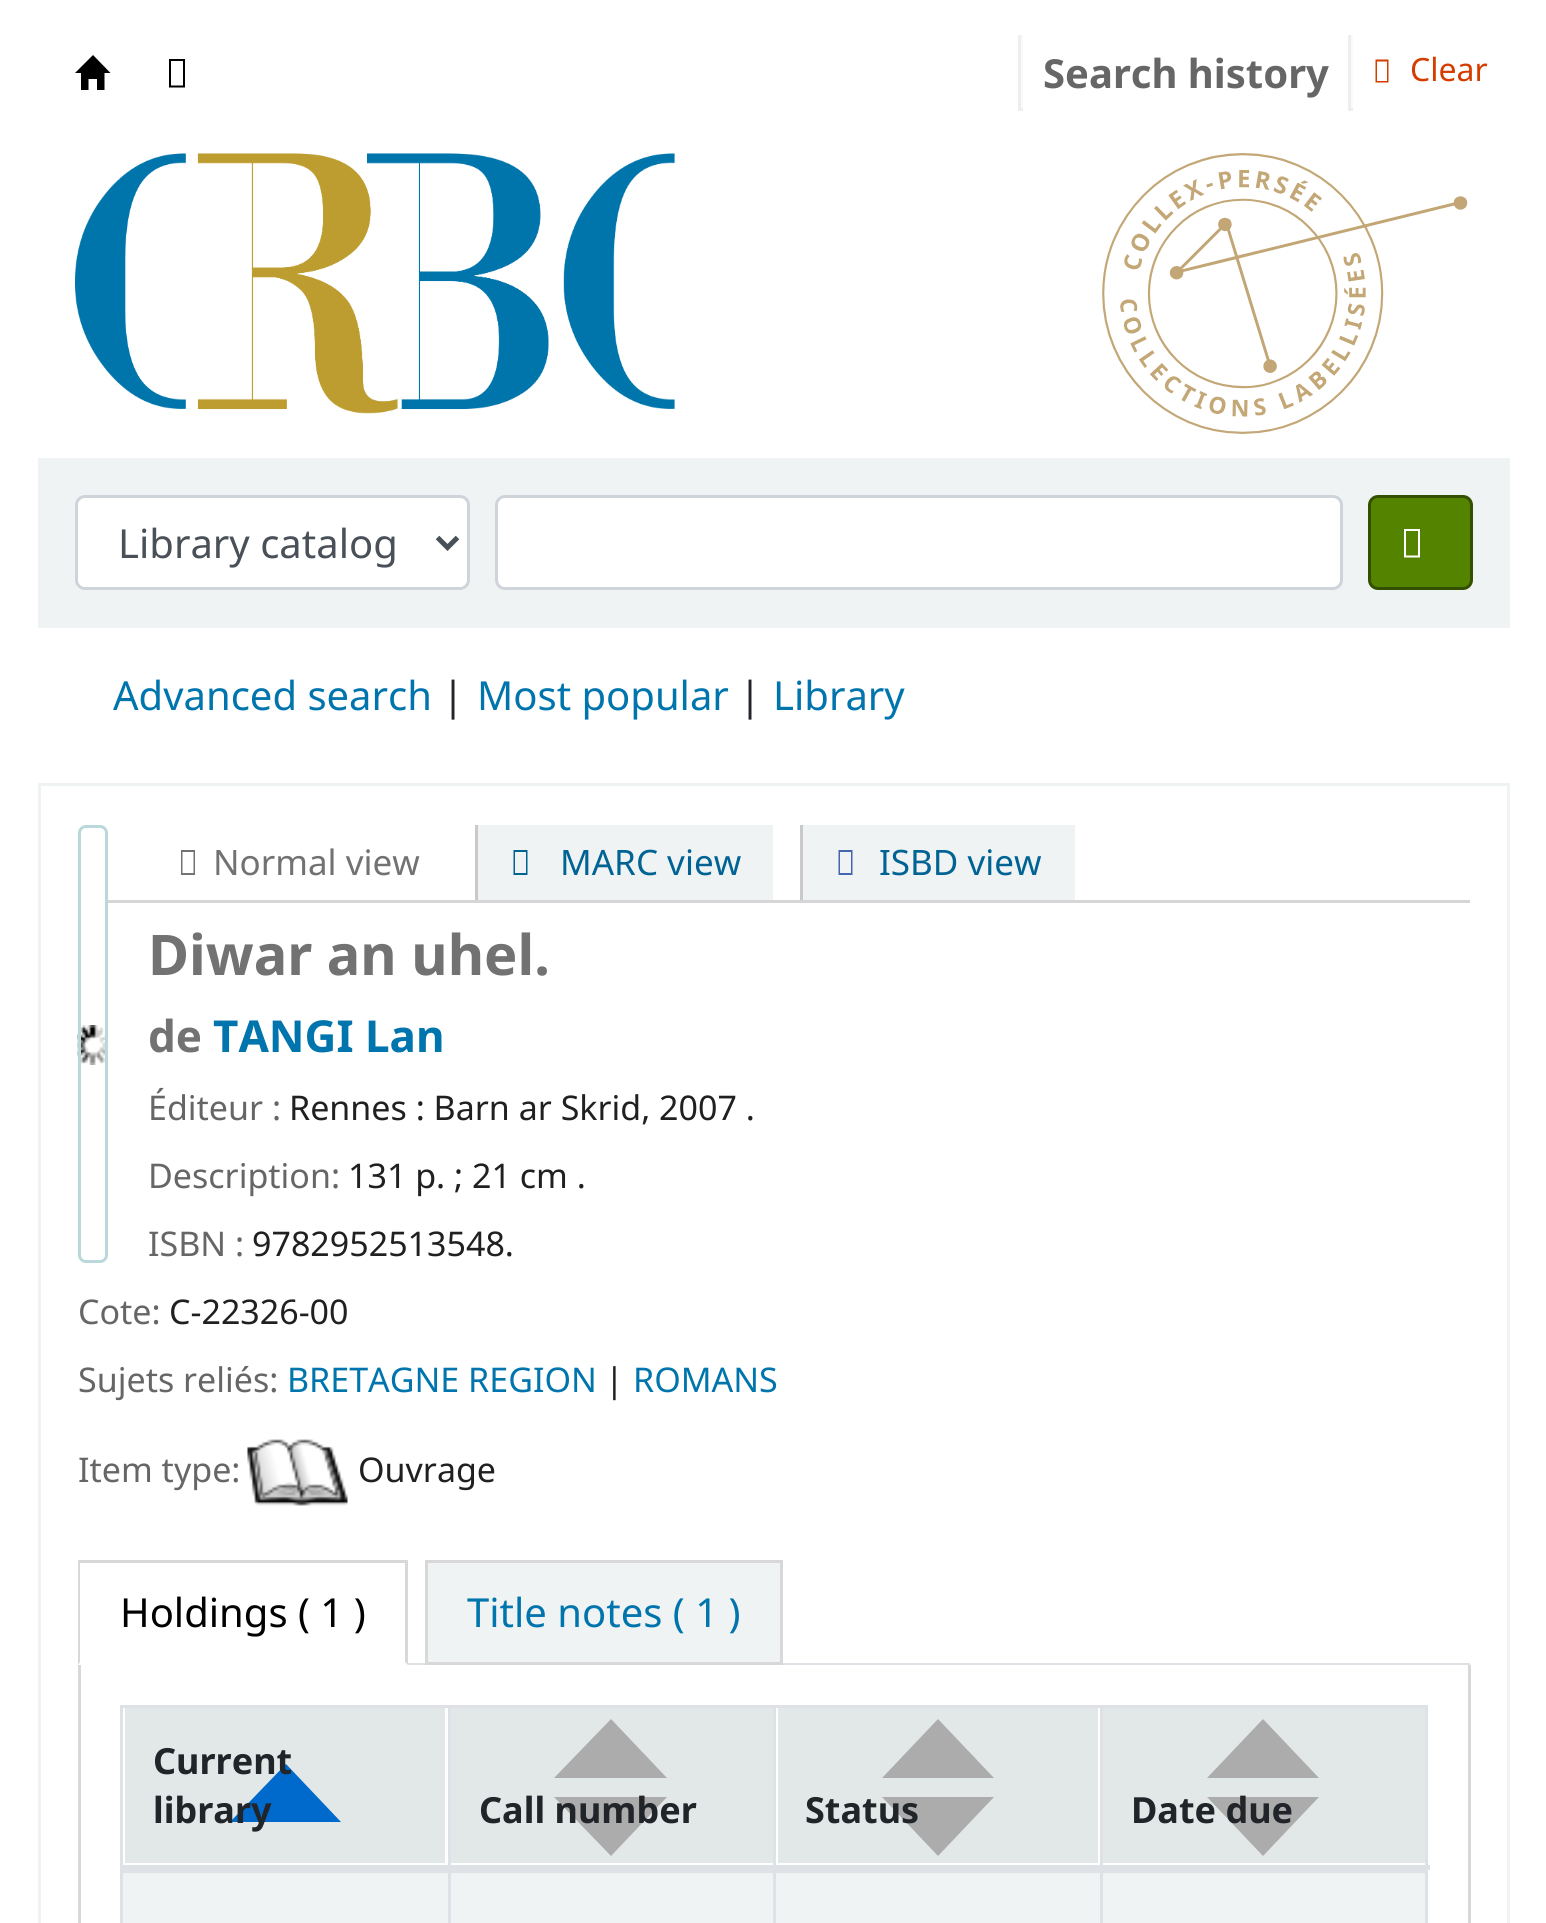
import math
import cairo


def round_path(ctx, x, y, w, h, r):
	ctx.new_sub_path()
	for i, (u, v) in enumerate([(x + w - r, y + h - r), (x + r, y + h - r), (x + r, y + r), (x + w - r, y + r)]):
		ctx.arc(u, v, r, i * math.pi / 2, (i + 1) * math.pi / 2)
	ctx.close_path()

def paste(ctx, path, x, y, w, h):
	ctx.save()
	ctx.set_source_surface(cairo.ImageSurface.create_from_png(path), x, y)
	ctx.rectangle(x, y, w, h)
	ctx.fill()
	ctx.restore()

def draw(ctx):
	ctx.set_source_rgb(1, 1, 1)
	ctx.paint()
	ctx.set_source_rgb(0, 0, 0)
	ctx.new_path()
	ctx.move_to(81, 73)
	ctx.line_to(81, 90)
	ctx.line_to(88.5, 90)
	ctx.line_to(88.5, 79)
	ctx.line_to(97, 79)
	ctx.line_to(97, 90)
	ctx.line_to(104.5, 90)
	ctx.line_to(104.5, 73)
	ctx.close_path()
	ctx.move_to(110.5, 73)
	ctx.line_to(75, 73)
	ctx.line_to(93, 55)
	ctx.close_path()
	ctx.fill()
	ctx.new_path()
	ctx.move_to(169, 87.5)
	ctx.line_to(169, 59)
	ctx.line_to(185, 59)
	ctx.line_to(185, 87.5)
	ctx.close_path()
	ctx.move_to(171, 85.5)
	ctx.line_to(183, 85.5)
	ctx.line_to(183, 61)
	ctx.line_to(171, 61)
	ctx.close_path()
	ctx.fill()
	ctx.set_source_rgb(0.988, 0.976, 0.988)
	ctx.rectangle(1021, 35, 2, 75)
	ctx.fill()
	ctx.set_source_rgb(0.933, 0.933, 0.933)
	ctx.rectangle(1018, 108, 5, 3)
	ctx.rectangle(1018, 35, 3, 75)
	ctx.fill()
	ctx.select_font_face('Noto Sans', cairo.FONT_SLANT_NORMAL, cairo.FONT_WEIGHT_BOLD)
	ctx.set_font_size(40)
	ctx.set_source_rgb(0.4, 0.4, 0.4)
	ctx.move_to(1043, 88)
	ctx.show_text('Search history')
	ctx.set_source_rgb(0.988, 0.976, 0.988)
	ctx.rectangle(1351, 35, 2, 75)
	ctx.fill()
	ctx.set_source_rgb(0.933, 0.933, 0.933)
	ctx.rectangle(1348, 108, 5, 3)
	ctx.rectangle(1348, 35, 3, 75)
	ctx.fill()
	ctx.set_source_rgb(0.831, 0.235, 0)
	ctx.new_path()
	ctx.move_to(1375.5, 82.5)
	ctx.line_to(1375.5, 59.5)
	ctx.line_to(1388.5, 59.5)
	ctx.line_to(1388.5, 82.5)
	ctx.close_path()
	ctx.move_to(1377, 81)
	ctx.line_to(1387, 81)
	ctx.line_to(1387, 61.5)
	ctx.line_to(1377, 61.5)
	ctx.close_path()
	ctx.fill()
	ctx.select_font_face('Noto Sans')
	ctx.set_font_size(32)
	ctx.move_to(1410, 81)
	ctx.show_text('Clear')
	paste(ctx, 'media/1.png', 75, 153, 600, 261)
	paste(ctx, 'media/2.png', 1102, 153, 366, 281)
	ctx.set_source_rgb(0.941, 0.953, 0.953)
	ctx.rectangle(38, 458, 1472, 170)
	ctx.fill()
	ctx.set_source_rgb(1, 1, 1)
	round_path(ctx, 76.5, 496.5, 392, 92, 8.5)
	ctx.fill_preserve()
	ctx.set_source_rgb(0.808, 0.831, 0.855)
	ctx.set_line_width(3)
	ctx.stroke()
	ctx.new_path()
	ctx.move_to(437.5, 537.5)
	ctx.line_to(447.5, 547.5)
	ctx.line_to(457.5, 537.5)
	ctx.set_source_rgb(0.286, 0.314, 0.341)
	ctx.set_line_width(5)
	ctx.stroke()
	ctx.set_font_size(40)
	ctx.move_to(118, 558)
	ctx.show_text('Library catalog')
	ctx.set_source_rgb(1, 1, 1)
	round_path(ctx, 496.5, 496.5, 845, 92, 8.5)
	ctx.fill_preserve()
	ctx.set_source_rgb(0.808, 0.831, 0.855)
	ctx.set_line_width(3)
	ctx.stroke()
	ctx.set_source_rgb(0.329, 0.514, 0)
	round_path(ctx, 1369.5, 496.5, 102, 92, 8.5)
	ctx.fill_preserve()
	ctx.set_source_rgb(0.2, 0.314, 0)
	ctx.stroke()
	ctx.set_source_rgb(1, 1, 1)
	ctx.new_path()
	ctx.move_to(1404, 557.5)
	ctx.line_to(1404, 529)
	ctx.line_to(1420, 529)
	ctx.line_to(1420, 557.5)
	ctx.close_path()
	ctx.move_to(1406, 555.5)
	ctx.line_to(1418, 555.5)
	ctx.line_to(1418, 531)
	ctx.line_to(1406, 531)
	ctx.close_path()
	ctx.fill()
	ctx.set_source_rgb(0, 0.455, 0.678)
	ctx.move_to(113, 710)
	ctx.show_text('Advanced search')
	ctx.set_source_rgb(0.129, 0.145, 0.161)
	ctx.move_to(442, 710)
	ctx.show_text('|')
	ctx.set_source_rgb(0, 0.455, 0.678)
	ctx.move_to(477, 710)
	ctx.show_text('Most popular')
	ctx.set_source_rgb(0.129, 0.145, 0.161)
	ctx.move_to(739, 710)
	ctx.show_text('|')
	ctx.set_source_rgb(0, 0.455, 0.678)
	ctx.move_to(773, 710)
	ctx.show_text('Library')
	ctx.rectangle(39.5, 784.5, 1469, 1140)
	ctx.set_source_rgb(0.941, 0.953, 0.953)
	ctx.stroke()
	paste(ctx, 'media/3.png', 77, 1025, 28, 40)
	round_path(ctx, 79.5, 826.5, 27, 435, 6.5)
	ctx.set_source_rgb(0.725, 0.847, 0.851)
	ctx.stroke()
	ctx.set_source_rgb(0.839, 0.839, 0.839)
	ctx.rectangle(108, 900, 1362, 3)
	ctx.fill()
	ctx.set_source_rgb(0.447, 0.447, 0.447)
	ctx.new_path()
	ctx.move_to(181, 875)
	ctx.line_to(181, 850)
	ctx.line_to(195, 850)
	ctx.line_to(195, 875)
	ctx.close_path()
	ctx.move_to(182.5, 873)
	ctx.line_to(193.5, 873)
	ctx.line_to(193.5, 852)
	ctx.line_to(182.5, 852)
	ctx.close_path()
	ctx.fill()
	ctx.set_font_size(35)
	ctx.move_to(213, 875)
	ctx.show_text('Normal view')
	ctx.set_source_rgb(0.941, 0.953, 0.953)
	ctx.rectangle(478, 825, 295, 75)
	ctx.fill()
	ctx.set_source_rgb(0.788, 0.788, 0.788)
	ctx.rectangle(475, 825, 3, 75)
	ctx.fill()
	ctx.set_source_rgb(0, 0.388, 0.58)
	ctx.new_path()
	ctx.move_to(513.5, 875)
	ctx.line_to(513.5, 850)
	ctx.line_to(527.5, 850)
	ctx.line_to(527.5, 875)
	ctx.close_path()
	ctx.move_to(515, 873)
	ctx.line_to(526, 873)
	ctx.line_to(526, 852)
	ctx.line_to(515, 852)
	ctx.close_path()
	ctx.fill()
	ctx.move_to(560, 875)
	ctx.show_text('MARC view')
	ctx.set_source_rgb(0.941, 0.953, 0.953)
	ctx.rectangle(803, 825, 272, 75)
	ctx.fill()
	ctx.set_source_rgb(0.788, 0.788, 0.788)
	ctx.rectangle(800, 825, 3, 75)
	ctx.fill()
	ctx.set_source_rgb(0.267, 0.4, 0.682)
	ctx.new_path()
	ctx.move_to(838.5, 875)
	ctx.line_to(838.5, 850)
	ctx.line_to(852.5, 850)
	ctx.line_to(852.5, 875)
	ctx.close_path()
	ctx.move_to(840, 873)
	ctx.line_to(851, 873)
	ctx.line_to(851, 852)
	ctx.line_to(840, 852)
	ctx.close_path()
	ctx.fill()
	ctx.set_source_rgb(0, 0.388, 0.58)
	ctx.move_to(879, 875)
	ctx.show_text('ISBD view')
	ctx.select_font_face('Noto Sans', cairo.FONT_SLANT_NORMAL, cairo.FONT_WEIGHT_BOLD)
	ctx.set_font_size(56)
	ctx.set_source_rgb(0.447, 0.447, 0.447)
	ctx.move_to(148, 975)
	ctx.show_text('Diwar an uhel.')
	ctx.set_font_size(44)
	ctx.move_to(148, 1052)
	ctx.show_text('de')
	ctx.set_source_rgb(0, 0.455, 0.678)
	ctx.move_to(213, 1052)
	ctx.show_text('TANGI Lan')
	ctx.select_font_face('Noto Sans')
	ctx.set_font_size(34)
	ctx.set_source_rgb(0.4, 0.4, 0.4)
	ctx.move_to(148, 1120)
	ctx.show_text('Éditeur :')
	ctx.set_source_rgb(0.125, 0.125, 0.125)
	ctx.move_to(289, 1120)
	ctx.show_text('Rennes : Barn ar Skrid, 2007 .')
	ctx.set_source_rgb(0.4, 0.4, 0.4)
	ctx.move_to(148, 1188)
	ctx.show_text('Description:')
	ctx.set_source_rgb(0.125, 0.125, 0.125)
	ctx.move_to(348, 1188)
	ctx.show_text('131 p. ; 21 cm .')
	ctx.set_source_rgb(0.4, 0.4, 0.4)
	ctx.move_to(148, 1256)
	ctx.show_text('ISBN :')
	ctx.set_source_rgb(0.125, 0.125, 0.125)
	ctx.move_to(252, 1256)
	ctx.show_text('9782952513548.')
	ctx.set_source_rgb(0.4, 0.4, 0.4)
	ctx.move_to(78, 1324)
	ctx.show_text('Cote:')
	ctx.set_source_rgb(0.125, 0.125, 0.125)
	ctx.move_to(169, 1324)
	ctx.show_text('C-22326-00')
	ctx.set_source_rgb(0.4, 0.4, 0.4)
	ctx.move_to(78, 1392)
	ctx.show_text('Sujets reliés:')
	ctx.set_source_rgb(0, 0.455, 0.678)
	ctx.move_to(287, 1392)
	ctx.show_text('BRETAGNE REGION')
	ctx.set_source_rgb(0.125, 0.125, 0.125)
	ctx.move_to(605, 1392)
	ctx.show_text('|')
	ctx.set_source_rgb(0, 0.455, 0.678)
	ctx.move_to(633, 1392)
	ctx.show_text('ROMANS')
	ctx.set_source_rgb(0.4, 0.4, 0.4)
	ctx.move_to(78, 1482)
	ctx.show_text('Item type:')
	paste(ctx, 'media/4.png', 247, 1439, 101, 67)
	ctx.set_source_rgb(0.125, 0.125, 0.125)
	ctx.move_to(358, 1482)
	ctx.show_text('Ouvrage')
	ctx.set_source_rgb(0.871, 0.886, 0.902)
	ctx.rectangle(408, 1663, 1062, 2)
	ctx.fill()
	ctx.set_source_rgb(0.847, 0.847, 0.847)
	ctx.rectangle(78, 1560, 330, 3)
	ctx.fill()
	ctx.new_path()
	ctx.move_to(408, 1560)
	ctx.line_to(408, 1665)
	ctx.line_to(405, 1662)
	ctx.line_to(405, 1562)
	ctx.close_path()
	ctx.fill()
	ctx.new_path()
	ctx.move_to(78, 1665)
	ctx.line_to(78, 1560)
	ctx.line_to(80, 1562)
	ctx.line_to(80, 1662)
	ctx.close_path()
	ctx.fill()
	ctx.set_font_size(40)
	ctx.set_source_rgb(0, 0, 0)
	ctx.move_to(120, 1627)
	ctx.show_text('Holdings ( 1 )')
	ctx.set_source_rgb(0.941, 0.953, 0.953)
	ctx.rectangle(426.5, 1561.5, 355, 102)
	ctx.fill_preserve()
	ctx.set_source_rgb(0.847, 0.847, 0.847)
	ctx.stroke()
	ctx.set_source_rgb(0, 0.455, 0.678)
	ctx.move_to(467, 1627)
	ctx.show_text('Title notes ( 1 )')
	ctx.set_source_rgb(0.847, 0.847, 0.847)
	ctx.rectangle(1468, 1665, 3, 258)
	ctx.rectangle(78, 1665, 3, 258)
	ctx.fill()
	ctx.set_source_rgb(0.871, 0.886, 0.902)
	ctx.rectangle(120, 1705, 1308, 3)
	ctx.rectangle(1425, 1705, 3, 218)
	ctx.rectangle(120, 1705, 3, 218)
	ctx.fill()
	ctx.set_source_rgb(0.886, 0.91, 0.91)
	ctx.rectangle(125, 1708, 320, 155)
	ctx.fill()
	ctx.set_source_rgb(0, 0.416, 0.8)
	ctx.new_path()
	ctx.move_to(341, 1822)
	ctx.line_to(230, 1822)
	ctx.line_to(286, 1764)
	ctx.close_path()
	ctx.fill()
	ctx.select_font_face('Noto Sans', cairo.FONT_SLANT_NORMAL, cairo.FONT_WEIGHT_BOLD)
	ctx.set_font_size(36)
	ctx.set_source_rgb(0.129, 0.145, 0.161)
	ctx.move_to(153, 1774)
	ctx.show_text('Current')
	ctx.move_to(153, 1823)
	ctx.show_text('library')
	ctx.set_source_rgb(0.886, 0.91, 0.91)
	ctx.rectangle(451, 1708, 322, 155)
	ctx.fill()
	ctx.set_source_rgb(0.675, 0.675, 0.675)
	ctx.new_path()
	ctx.move_to(667, 1797)
	ctx.line_to(554, 1797)
	ctx.line_to(611, 1856)
	ctx.close_path()
	ctx.fill()
	ctx.new_path()
	ctx.move_to(667, 1778)
	ctx.line_to(554, 1778)
	ctx.line_to(611, 1719)
	ctx.close_path()
	ctx.fill()
	ctx.set_source_rgb(0.871, 0.886, 0.902)
	ctx.rectangle(448, 1705, 3, 163)
	ctx.fill()
	ctx.set_source_rgb(0.129, 0.145, 0.161)
	ctx.move_to(479, 1823)
	ctx.show_text('Call number')
	ctx.set_source_rgb(0.886, 0.91, 0.91)
	ctx.rectangle(778, 1708, 320, 155)
	ctx.fill()
	ctx.set_source_rgb(0.675, 0.675, 0.675)
	ctx.new_path()
	ctx.move_to(994, 1797)
	ctx.line_to(882, 1797)
	ctx.line_to(938, 1856)
	ctx.close_path()
	ctx.fill()
	ctx.new_path()
	ctx.move_to(994, 1778)
	ctx.line_to(882, 1778)
	ctx.line_to(938, 1719)
	ctx.close_path()
	ctx.fill()
	ctx.set_source_rgb(0.871, 0.886, 0.902)
	ctx.rectangle(773, 1705, 3, 163)
	ctx.fill()
	ctx.set_source_rgb(0.129, 0.145, 0.161)
	ctx.move_to(805, 1823)
	ctx.show_text('Status')
	ctx.set_source_rgb(0.886, 0.91, 0.91)
	ctx.rectangle(1103, 1708, 322, 155)
	ctx.fill()
	ctx.set_source_rgb(0.675, 0.675, 0.675)
	ctx.new_path()
	ctx.move_to(1319, 1797)
	ctx.line_to(1207, 1797)
	ctx.line_to(1263, 1856)
	ctx.close_path()
	ctx.fill()
	ctx.new_path()
	ctx.move_to(1319, 1778)
	ctx.line_to(1207, 1778)
	ctx.line_to(1263, 1719)
	ctx.close_path()
	ctx.fill()
	ctx.set_source_rgb(0.871, 0.886, 0.902)
	ctx.rectangle(1100, 1705, 3, 163)
	ctx.fill()
	ctx.rectangle(120, 1865, 1310, 5)
	ctx.fill()
	ctx.set_source_rgb(0.129, 0.145, 0.161)
	ctx.move_to(1131, 1823)
	ctx.show_text('Date due')
	ctx.set_source_rgb(0.941, 0.953, 0.953)
	ctx.rectangle(123, 1873, 325, 50)
	ctx.fill()
	ctx.set_source_rgb(0.871, 0.886, 0.902)
	ctx.rectangle(1100, 1870, 328, 3)
	ctx.rectangle(1100, 1870, 3, 53)
	ctx.rectangle(773, 1870, 330, 3)
	ctx.rectangle(773, 1870, 3, 53)
	ctx.rectangle(448, 1870, 327, 3)
	ctx.rectangle(448, 1870, 3, 53)
	ctx.rectangle(120, 1870, 330, 3)
	ctx.fill()
	ctx.set_source_rgb(0.941, 0.953, 0.953)
	ctx.rectangle(451, 1873, 322, 50)
	ctx.rectangle(776, 1873, 324, 50)
	ctx.rectangle(1103, 1873, 322, 50)
	ctx.fill()


surface = cairo.ImageSurface(cairo.FORMAT_RGB24, 1546, 1923)
ctx = cairo.Context(surface)
options = cairo.FontOptions()
options.set_hint_metrics(cairo.HINT_METRICS_OFF)
options.set_hint_style(cairo.HINT_STYLE_NONE)
ctx.set_font_options(options)
ctx.set_miter_limit(4)
draw(ctx)
surface.write_to_png('image.png')
